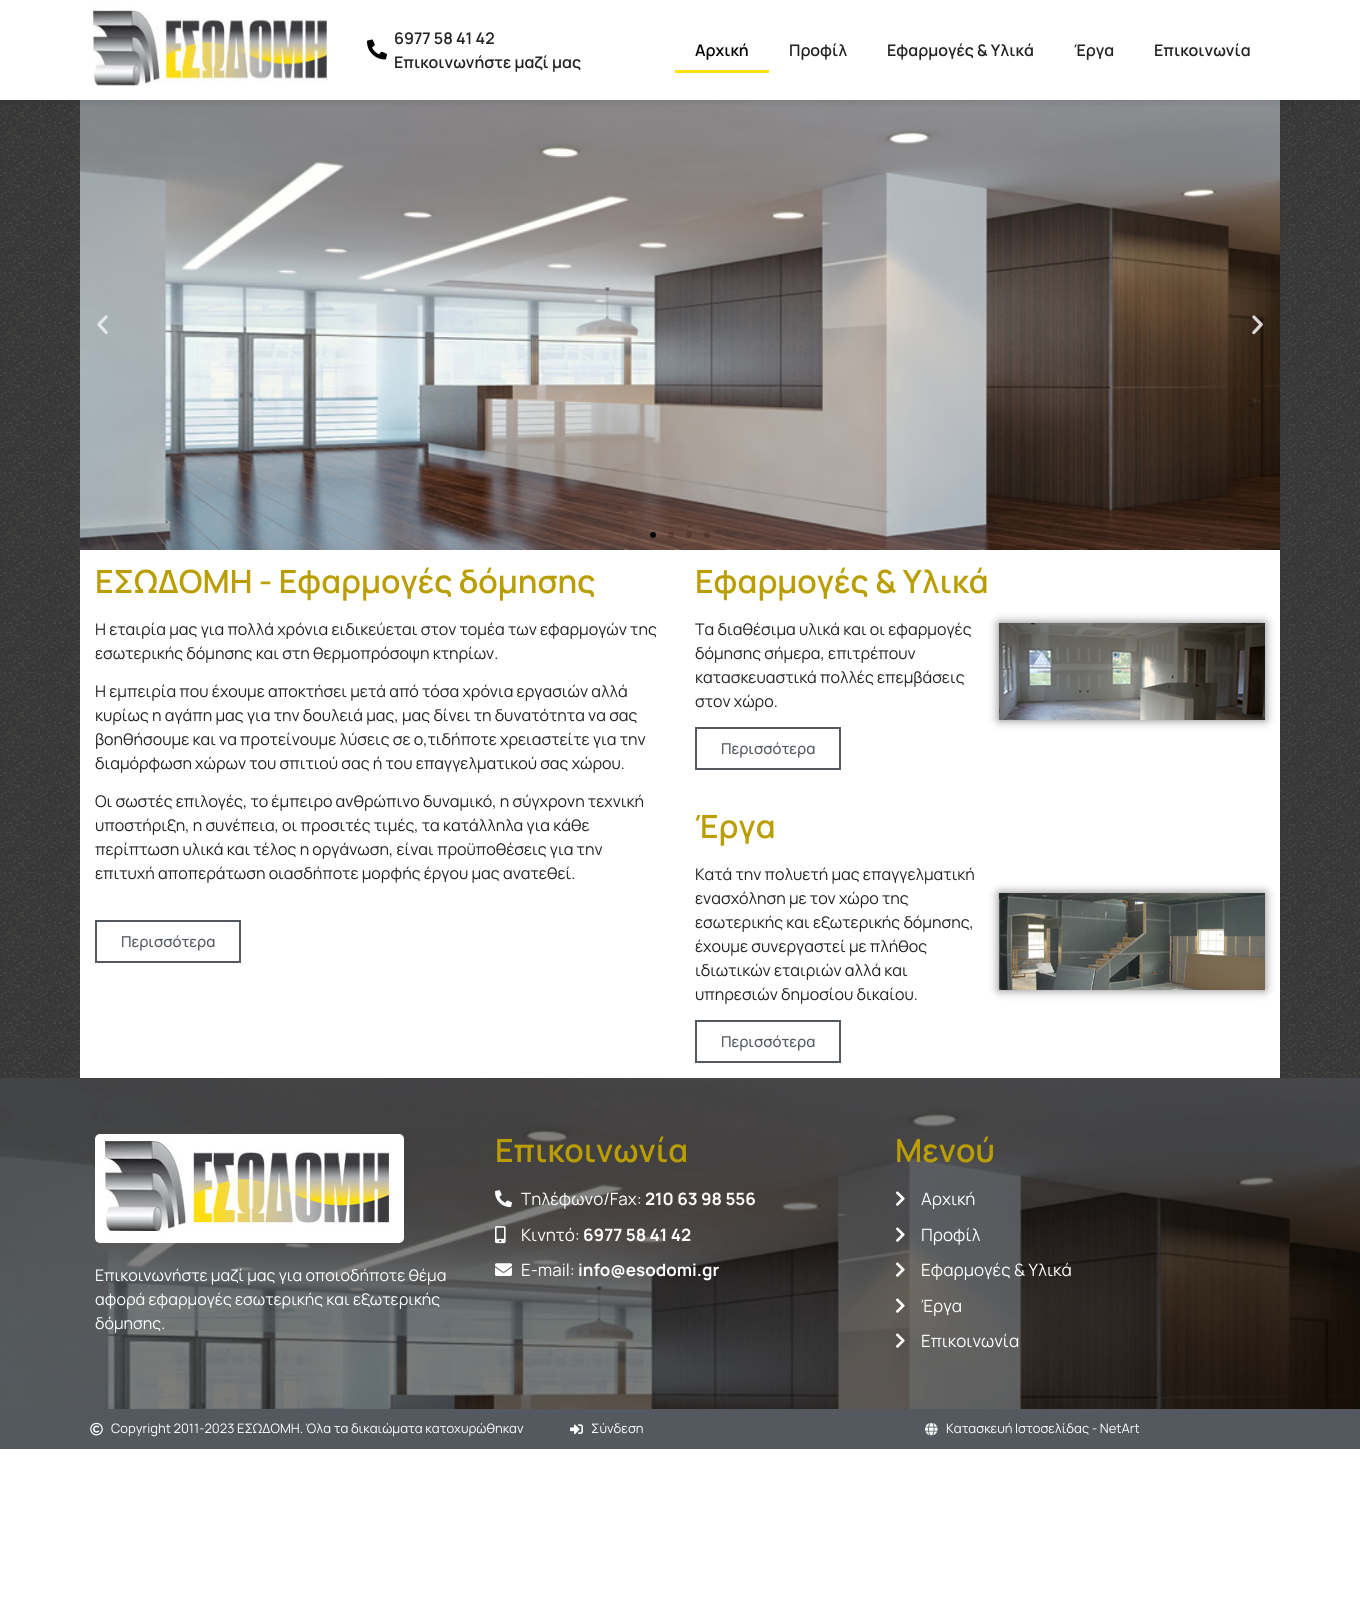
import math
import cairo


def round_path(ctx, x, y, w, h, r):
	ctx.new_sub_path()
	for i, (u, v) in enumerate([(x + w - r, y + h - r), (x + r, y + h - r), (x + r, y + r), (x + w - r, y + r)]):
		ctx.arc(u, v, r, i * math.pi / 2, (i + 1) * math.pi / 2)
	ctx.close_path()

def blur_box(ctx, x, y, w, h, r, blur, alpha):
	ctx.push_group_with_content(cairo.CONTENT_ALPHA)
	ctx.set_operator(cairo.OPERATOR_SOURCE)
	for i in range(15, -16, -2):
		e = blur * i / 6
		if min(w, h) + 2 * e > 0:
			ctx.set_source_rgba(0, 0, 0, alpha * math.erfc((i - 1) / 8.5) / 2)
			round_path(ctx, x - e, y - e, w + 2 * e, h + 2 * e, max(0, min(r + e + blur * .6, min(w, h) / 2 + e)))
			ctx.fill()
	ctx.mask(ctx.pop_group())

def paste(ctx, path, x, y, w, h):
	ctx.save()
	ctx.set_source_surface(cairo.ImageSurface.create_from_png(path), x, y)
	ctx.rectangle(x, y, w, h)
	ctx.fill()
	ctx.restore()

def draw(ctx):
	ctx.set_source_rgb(1, 1, 1)
	ctx.paint()
	paste(ctx, 'media/3.png', 0, 100, 1360, 450)
	paste(ctx, 'media/4.png', 80, 100, 1200, 450)
	ctx.save()
	ctx.rectangle(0, 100, 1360, 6)
	ctx.clip()
	ctx.set_source_rgb(0, 0, 0)
	blur_box(ctx, 0, 0, 1360, 100, 0, 5, 0.15)
	ctx.restore()
	paste(ctx, 'media/1.png', 92, 5, 236, 81)
	paste(ctx, 'media/2.png', 367, 39, 20, 21)
	ctx.select_font_face('Manrope SemiBold')
	ctx.set_font_size(16)
	ctx.set_source_rgb(0.133, 0.133, 0.133)
	ctx.move_to(394, 44)
	ctx.show_text('6977 58 41 42')
	ctx.move_to(394, 68)
	ctx.show_text('Επικοινωνήστε μαζί μας')
	ctx.set_source_rgb(0, 0, 0)
	ctx.move_to(695, 56)
	ctx.show_text('Αρχική')
	ctx.set_source_rgb(1, 0.867, 0.055)
	ctx.rectangle(675, 70, 94, 3)
	ctx.fill()
	ctx.set_source_rgb(0.133, 0.133, 0.133)
	for x, y, s in [
		(789, 56, 'Προφίλ'),
		(887, 56, 'Εφαρμογές & Υλικά'),
		(1074, 56, 'Έργα'),
		(1154, 56, 'Επικοινωνία'),
	]:
		ctx.move_to(x, y)
		ctx.show_text(s)
	paste(ctx, 'media/5.png', 97, 315, 11, 19)
	paste(ctx, 'media/6.png', 1252, 315, 11, 20)
	ctx.set_source_rgb(0, 0, 0)
	ctx.arc(653, 535, 3, 0, 2 * math.pi)
	ctx.fill()
	ctx.set_source_rgba(0, 0, 0, 0.2)
	ctx.arc(671, 535, 3, 0, 2 * math.pi)
	ctx.fill()
	ctx.arc(689, 535, 3, 0, 2 * math.pi)
	ctx.fill()
	ctx.arc(707, 535, 3, 0, 2 * math.pi)
	ctx.fill()
	paste(ctx, 'media/7.png', 0, 550, 1360, 528)
	ctx.set_source_rgb(1, 1, 1)
	ctx.rectangle(80, 550, 1200, 528)
	ctx.fill()
	ctx.set_font_size(32)
	ctx.set_source_rgb(0.729, 0.62, 0.004)
	ctx.move_to(95, 593)
	ctx.show_text('ΕΣΩΔΟΜΗ - Εφαρμογές δόμησης')
	ctx.select_font_face('Manrope')
	ctx.set_font_size(16)
	ctx.set_source_rgb(0.133, 0.133, 0.133)
	for x, y, s in [
		(95, 635, 'Η εταιρία μας για πολλά χρόνια ειδικεύεται στον τομέα των εφαρμογών της'),
		(95, 659, 'εσωτερικής δόμησης και στη θερμοπρόσοψη κτηρίων.'),
		(95, 697, 'Η εμπειρία που έχουμε αποκτήσει μετά από τόσα χρόνια εργασιών αλλά'),
		(95, 721, 'κυρίως η αγάπη μας για την δουλειά μας, μας δίνει τη δυνατότητα να σας'),
		(95, 745, 'βοηθήσουμε και να προτείνουμε λύσεις σε ο,τιδήποτε χρειαστείτε για την'),
		(95, 769, 'διαμόρφωση χώρων του σπιτιού σας ή του επαγγελματικού σας χώρου.'),
		(95, 807, 'Οι σωστές επιλογές, το έμπειρο ανθρώπινο δυναμικό, η σύγχρονη τεχνική'),
		(95, 831, 'υποστήριξη, η συνέπεια, οι προσιτές τιμές, τα κατάλληλα για κάθε'),
		(95, 855, 'περίπτωση υλικά και τέλος η οργάνωση, είναι προϋποθέσεις για την'),
		(95, 879, 'επιτυχή αποπεράτωση οιασδήποτε μορφής έργου μας ανατεθεί.'),
	]:
		ctx.move_to(x, y)
		ctx.show_text(s)
	ctx.rectangle(96, 921, 144, 41)
	ctx.set_source_rgb(0.329, 0.349, 0.373)
	ctx.stroke()
	ctx.select_font_face('Manrope Medium')
	ctx.set_font_size(15)
	ctx.move_to(121, 947)
	ctx.show_text('Περισσότερα')
	ctx.select_font_face('Manrope SemiBold')
	ctx.set_font_size(32)
	ctx.set_source_rgb(0.729, 0.62, 0.004)
	ctx.move_to(695, 593)
	ctx.show_text('Εφαρμογές & Υλικά')
	ctx.select_font_face('Manrope')
	ctx.set_font_size(16)
	ctx.set_source_rgb(0.133, 0.133, 0.133)
	for x, y, s in [
		(695, 635, 'Τα διαθέσιμα υλικά και οι εφαρμογές'),
		(695, 659, 'δόμησης σήμερα, επιτρέπουν'),
		(695, 683, 'κατασκευαστικά πολλές επεμβάσεις'),
		(695, 707, 'στον χώρο.'),
	]:
		ctx.move_to(x, y)
		ctx.show_text(s)
	ctx.set_source_rgb(0, 0, 0)
	blur_box(ctx, 999, 623, 266, 97, 0, 5, 0.5)
	paste(ctx, 'media/8.png', 999, 623, 266, 97)
	ctx.rectangle(696, 728, 144, 41)
	ctx.set_source_rgb(0.329, 0.349, 0.373)
	ctx.stroke()
	ctx.select_font_face('Manrope Medium')
	ctx.set_font_size(15)
	ctx.move_to(721, 754)
	ctx.show_text('Περισσότερα')
	ctx.select_font_face('Manrope SemiBold')
	ctx.set_font_size(32)
	ctx.set_source_rgb(0.729, 0.62, 0.004)
	ctx.move_to(695, 838)
	ctx.show_text('Έργα')
	ctx.select_font_face('Manrope')
	ctx.set_font_size(16)
	ctx.set_source_rgb(0.133, 0.133, 0.133)
	for x, y, s in [
		(695, 880, 'Κατά την πολυετή μας επαγγελματική'),
		(695, 904, 'ενασχόληση με τον χώρο της'),
		(695, 928, 'εσωτερικής και εξωτερικής δόμησης,'),
		(695, 952, 'έχουμε συνεργαστεί με πλήθος'),
		(695, 976, 'ιδιωτικών εταιριών αλλά και'),
		(695, 1000, 'υπηρεσιών δημοσίου δικαίου.'),
	]:
		ctx.move_to(x, y)
		ctx.show_text(s)
	ctx.set_source_rgb(0, 0, 0)
	blur_box(ctx, 999, 893, 266, 97, 0, 5, 0.5)
	paste(ctx, 'media/9.png', 999, 893, 266, 97)
	ctx.rectangle(696, 1021, 144, 41)
	ctx.set_source_rgb(0.329, 0.349, 0.373)
	ctx.stroke()
	ctx.select_font_face('Manrope Medium')
	ctx.set_font_size(15)
	ctx.move_to(721, 1047)
	ctx.show_text('Περισσότερα')
	paste(ctx, 'media/10.png', 0, 1078, 1360, 331)
	paste(ctx, 'media/11.png', 95, 1134, 309, 109)
	ctx.select_font_face('Manrope')
	ctx.set_font_size(16)
	ctx.set_source_rgb(1, 1, 1)
	for x, y, s in [
		(95, 1281, 'Επικοινωνήστε μαζί μας για οποιοδήποτε θέμα'),
		(95, 1305, 'αφορά εφαρμογές εσωτερικής και εξωτερικής'),
		(95, 1329, 'δόμησης.'),
	]:
		ctx.move_to(x, y)
		ctx.show_text(s)
	ctx.select_font_face('Manrope SemiBold')
	ctx.set_font_size(32)
	ctx.set_source_rgb(0.729, 0.62, 0.004)
	ctx.move_to(495, 1162)
	ctx.show_text('Επικοινωνία')
	paste(ctx, 'media/12.png', 495, 1190, 17, 18)
	ctx.select_font_face('Manrope')
	ctx.set_font_size(17)
	ctx.set_source_rgb(1, 1, 1)
	ctx.move_to(521, 1205)
	ctx.show_text('Τηλέφωνο/Fax:')
	ctx.select_font_face('Manrope', cairo.FONT_SLANT_NORMAL, cairo.FONT_WEIGHT_BOLD)
	ctx.move_to(645, 1205)
	ctx.show_text('210 63 98 556')
	paste(ctx, 'media/13.png', 495, 1226, 11, 18)
	ctx.select_font_face('Manrope')
	ctx.move_to(521, 1241)
	ctx.show_text('Κινητό:')
	ctx.select_font_face('Manrope', cairo.FONT_SLANT_NORMAL, cairo.FONT_WEIGHT_BOLD)
	ctx.move_to(583, 1241)
	ctx.show_text('6977 58 41 42')
	paste(ctx, 'media/14.png', 495, 1263, 17, 13)
	ctx.select_font_face('Manrope')
	ctx.move_to(521, 1276)
	ctx.show_text('E-mail:')
	ctx.select_font_face('Manrope', cairo.FONT_SLANT_NORMAL, cairo.FONT_WEIGHT_BOLD)
	ctx.move_to(578, 1276)
	ctx.show_text('info@esodomi.gr')
	ctx.select_font_face('Manrope SemiBold')
	ctx.set_font_size(32)
	ctx.set_source_rgb(0.729, 0.62, 0.004)
	ctx.move_to(895, 1162)
	ctx.show_text('Μενού')
	paste(ctx, 'media/15.png', 896, 1191, 9, 15)
	ctx.select_font_face('Manrope')
	ctx.set_font_size(17)
	ctx.set_source_rgb(1, 1, 1)
	ctx.move_to(921, 1205)
	ctx.show_text('Αρχική')
	paste(ctx, 'media/16.png', 896, 1227, 9, 15)
	ctx.move_to(921, 1241)
	ctx.show_text('Προφίλ')
	paste(ctx, 'media/17.png', 896, 1262, 9, 15)
	ctx.move_to(921, 1276)
	ctx.show_text('Εφαρμογές & Υλικά')
	paste(ctx, 'media/18.png', 896, 1298, 9, 15)
	ctx.move_to(921, 1312)
	ctx.show_text('Έργα')
	paste(ctx, 'media/19.png', 896, 1333, 9, 15)
	ctx.move_to(921, 1347)
	ctx.show_text('Επικοινωνία')
	ctx.set_source_rgb(0.329, 0.349, 0.373)
	ctx.rectangle(0, 1409, 1360, 40)
	ctx.fill()
	paste(ctx, 'media/20.png', 90, 1422, 13, 14)
	ctx.set_font_size(13)
	ctx.set_source_rgb(1, 1, 1)
	ctx.move_to(111, 1433)
	ctx.show_text('Copyright 2011-2023 ΕΣΩΔΟΜΗ. Όλα τα δικαιώματα κατοχυρώθηκαν')
	paste(ctx, 'media/21.png', 570, 1424, 13, 11)
	ctx.move_to(591, 1433)
	ctx.show_text('Σύνδεση')
	paste(ctx, 'media/22.png', 925, 1422, 13, 14)
	ctx.move_to(946, 1433)
	ctx.show_text('Κατασκευή Ιστοσελίδας - NetArt')


surface = cairo.ImageSurface(cairo.FORMAT_RGB24, 1360, 1606)
ctx = cairo.Context(surface)
options = cairo.FontOptions()
options.set_hint_metrics(cairo.HINT_METRICS_OFF)
options.set_hint_style(cairo.HINT_STYLE_NONE)
ctx.set_font_options(options)
ctx.set_miter_limit(4)
draw(ctx)
surface.write_to_png('image.png')
